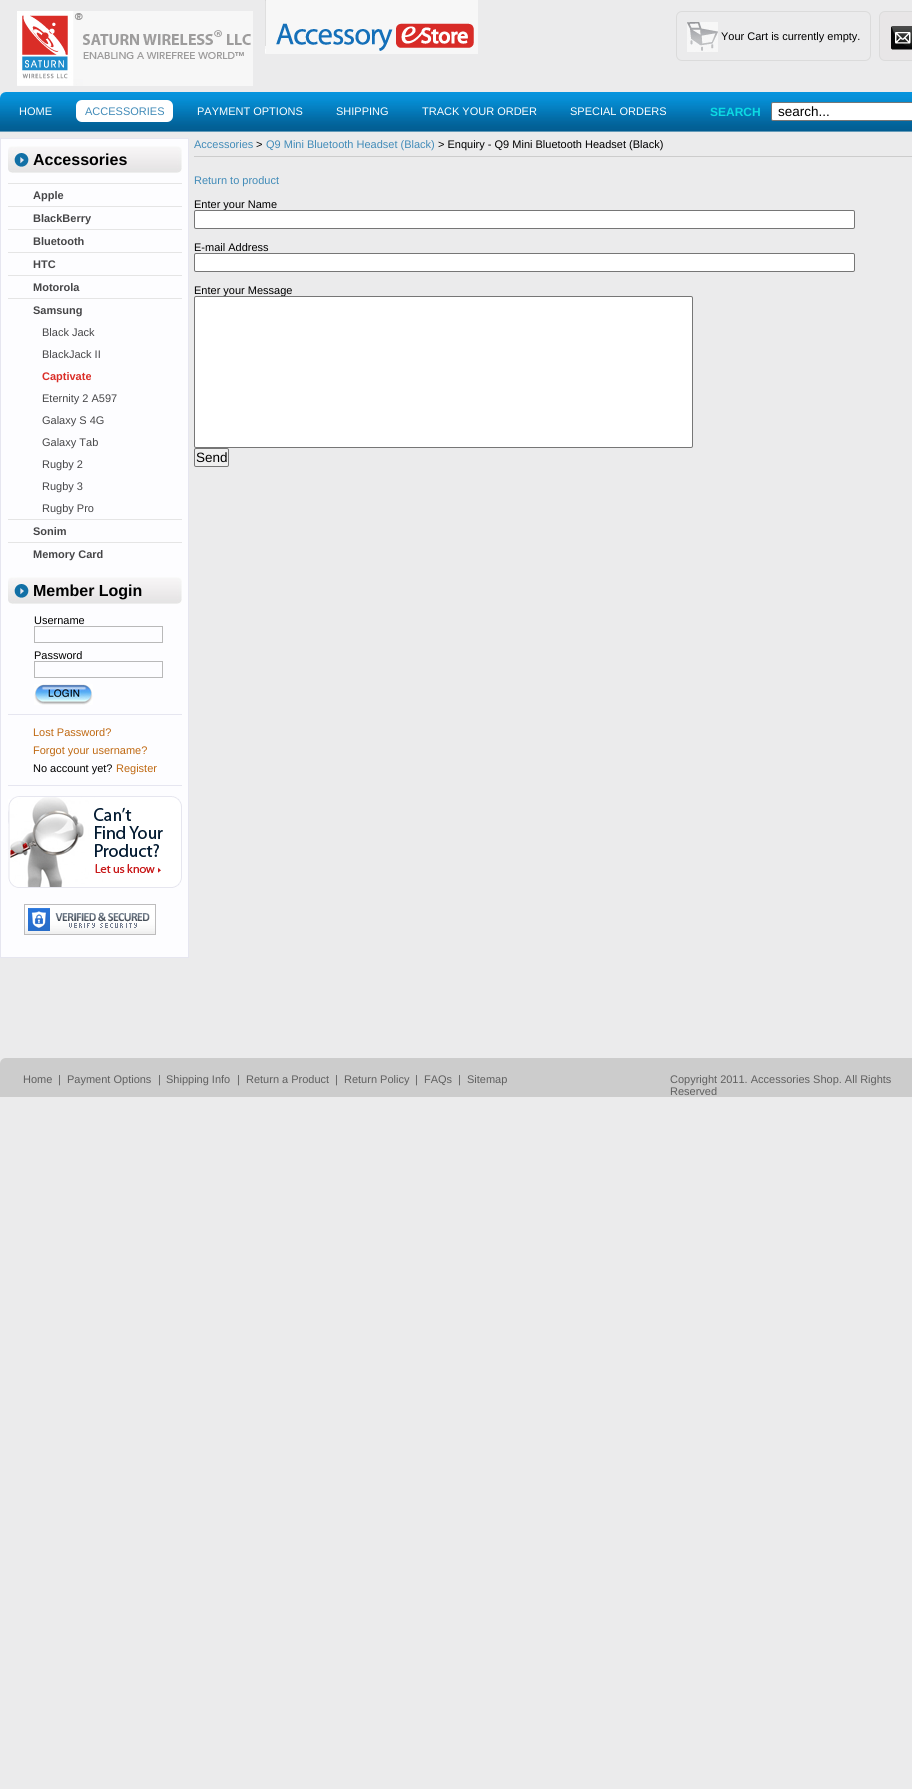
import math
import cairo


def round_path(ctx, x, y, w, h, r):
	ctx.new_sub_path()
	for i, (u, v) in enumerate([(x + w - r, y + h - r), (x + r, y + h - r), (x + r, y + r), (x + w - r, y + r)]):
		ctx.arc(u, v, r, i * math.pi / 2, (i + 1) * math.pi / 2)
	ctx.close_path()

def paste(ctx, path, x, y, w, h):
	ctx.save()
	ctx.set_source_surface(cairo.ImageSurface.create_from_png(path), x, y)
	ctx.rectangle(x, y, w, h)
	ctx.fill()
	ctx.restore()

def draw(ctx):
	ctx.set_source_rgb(0.918, 0.918, 0.925)
	ctx.paint()
	paste(ctx, 'media/1.png', 17, 11, 236, 75)
	paste(ctx, 'media/2.png', 265, 0, 213, 54)
	round_path(ctx, 676.5, 11.5, 194, 49, 5.5)
	ctx.set_source_rgb(0.859, 0.859, 0.859)
	ctx.set_line_width(1)
	ctx.stroke()
	paste(ctx, 'media/3.png', 687, 22, 31, 30)
	ctx.select_font_face('Liberation Sans')
	ctx.set_font_size(11)
	ctx.set_source_rgb(0, 0, 0)
	ctx.move_to(721, 40)
	ctx.show_text('Your Cart is currently empty.')
	ctx.set_source_rgb(0.91, 0.902, 0.906)
	round_path(ctx, 879.5, 11.5, 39, 49, 5.5)
	ctx.fill_preserve()
	ctx.set_source_rgb(0.859, 0.859, 0.859)
	ctx.stroke()
	paste(ctx, 'media/4.png', 891, 26, 21, 24)
	paste(ctx, 'media/5.png', 0, 92, 912, 40)
	ctx.set_source_rgb(1, 1, 1)
	ctx.move_to(19, 115)
	ctx.show_text('HOME')
	round_path(ctx, 76, 100, 97, 22, 6)
	ctx.fill()
	ctx.set_source_rgb(0.255, 0.545, 0.722)
	ctx.move_to(85, 115)
	ctx.show_text('ACCESSORIES')
	ctx.set_source_rgb(1, 1, 1)
	for x, y, s in [
		(197, 115, 'PAYMENT OPTIONS'),
		(336, 115, 'SHIPPING'),
		(422, 115, 'TRACK YOUR ORDER'),
		(570, 115, 'SPECIAL ORDERS'),
	]:
		ctx.move_to(x, y)
		ctx.show_text(s)
	ctx.select_font_face('Liberation Sans', cairo.FONT_SLANT_NORMAL, cairo.FONT_WEIGHT_BOLD)
	ctx.set_font_size(12)
	ctx.set_source_rgb(0.047, 0.859, 0.89)
	ctx.move_to(710, 116)
	ctx.show_text('SEARCH')
	ctx.set_source_rgb(1, 1, 1)
	round_path(ctx, 771.5, 102.5, 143, 18, 1.5)
	ctx.fill_preserve()
	ctx.set_source_rgb(0.463, 0.463, 0.463)
	ctx.stroke()
	ctx.select_font_face('Liberation Sans')
	ctx.set_font_size(13.5)
	ctx.set_source_rgb(0, 0, 0)
	ctx.move_to(778, 116)
	ctx.show_text('search...')
	ctx.set_source_rgb(0.992, 0.992, 1)
	ctx.rectangle(0.5, 138.5, 188, 819)
	ctx.fill_preserve()
	ctx.set_source_rgb(0.902, 0.902, 0.941)
	ctx.stroke()
	paste(ctx, 'media/6.png', 8, 146, 174, 27)
	ctx.select_font_face('Liberation Sans', cairo.FONT_SLANT_NORMAL, cairo.FONT_WEIGHT_BOLD)
	ctx.set_font_size(16)
	ctx.set_source_rgb(0, 0, 0)
	ctx.move_to(33, 165)
	ctx.show_text('Accessories')
	ctx.set_source_rgb(0.898, 0.898, 0.898)
	ctx.rectangle(8, 183, 174, 1)
	ctx.fill()
	ctx.set_font_size(11)
	ctx.set_source_rgb(0.275, 0.275, 0.282)
	ctx.move_to(33, 199)
	ctx.show_text('Apple')
	ctx.set_source_rgb(0.898, 0.898, 0.898)
	ctx.rectangle(8, 206, 174, 1)
	ctx.fill()
	ctx.set_source_rgb(0.275, 0.275, 0.282)
	ctx.move_to(33, 222)
	ctx.show_text('BlackBerry')
	ctx.set_source_rgb(0.898, 0.898, 0.898)
	ctx.rectangle(8, 229, 174, 1)
	ctx.fill()
	ctx.set_source_rgb(0.275, 0.275, 0.282)
	ctx.move_to(33, 245)
	ctx.show_text('Bluetooth')
	ctx.set_source_rgb(0.898, 0.898, 0.898)
	ctx.rectangle(8, 252, 174, 1)
	ctx.fill()
	ctx.set_source_rgb(0.275, 0.275, 0.282)
	ctx.move_to(33, 268)
	ctx.show_text('HTC')
	ctx.set_source_rgb(0.898, 0.898, 0.898)
	ctx.rectangle(8, 275, 174, 1)
	ctx.fill()
	ctx.set_source_rgb(0.275, 0.275, 0.282)
	ctx.move_to(33, 291)
	ctx.show_text('Motorola')
	ctx.set_source_rgb(0.898, 0.898, 0.898)
	ctx.rectangle(8, 298, 174, 1)
	ctx.fill()
	ctx.set_source_rgb(0.275, 0.275, 0.282)
	ctx.move_to(33, 314)
	ctx.show_text('Samsung')
	ctx.select_font_face('Liberation Sans')
	ctx.move_to(42, 336)
	ctx.show_text('Black Jack')
	ctx.move_to(42, 358)
	ctx.show_text('BlackJack II')
	ctx.select_font_face('Liberation Sans', cairo.FONT_SLANT_NORMAL, cairo.FONT_WEIGHT_BOLD)
	ctx.set_source_rgb(0.855, 0.176, 0.153)
	ctx.move_to(42, 380)
	ctx.show_text('Captivate')
	ctx.select_font_face('Liberation Sans')
	ctx.set_source_rgb(0.275, 0.275, 0.282)
	for x, y, s in [
		(42, 402, 'Eternity 2 A597'),
		(42, 424, 'Galaxy S 4G'),
		(42, 446, 'Galaxy Tab'),
		(42, 468, 'Rugby 2'),
		(42, 490, 'Rugby 3'),
		(42, 512, 'Rugby Pro'),
	]:
		ctx.move_to(x, y)
		ctx.show_text(s)
	ctx.set_source_rgb(0.898, 0.898, 0.898)
	ctx.rectangle(8, 519, 174, 1)
	ctx.fill()
	ctx.select_font_face('Liberation Sans', cairo.FONT_SLANT_NORMAL, cairo.FONT_WEIGHT_BOLD)
	ctx.set_source_rgb(0.275, 0.275, 0.282)
	ctx.move_to(33, 535)
	ctx.show_text('Sonim')
	ctx.set_source_rgb(0.898, 0.898, 0.898)
	ctx.rectangle(8, 542, 174, 1)
	ctx.fill()
	ctx.set_source_rgb(0.275, 0.275, 0.282)
	ctx.move_to(33, 558)
	ctx.show_text('Memory Card')
	paste(ctx, 'media/6.png', 8, 577, 174, 27)
	ctx.set_font_size(16)
	ctx.set_source_rgb(0, 0, 0)
	ctx.move_to(33, 596)
	ctx.show_text('Member Login')
	ctx.select_font_face('Liberation Sans')
	ctx.set_font_size(11)
	ctx.move_to(34, 624)
	ctx.show_text('Username')
	ctx.rectangle(34.5, 626.5, 128, 16)
	ctx.set_source_rgb(0.725, 0.725, 0.725)
	ctx.stroke()
	ctx.set_source_rgb(0, 0, 0)
	ctx.move_to(34, 659)
	ctx.show_text('Password')
	ctx.rectangle(34.5, 661.5, 128, 16)
	ctx.set_source_rgb(0.725, 0.725, 0.725)
	ctx.stroke()
	paste(ctx, 'media/7.png', 34, 684, 59, 21)
	ctx.set_source_rgb(0.902, 0.902, 0.941)
	ctx.rectangle(8, 714, 174, 1)
	ctx.fill()
	ctx.rectangle(8, 785, 174, 1)
	ctx.fill()
	ctx.set_source_rgb(0.749, 0.412, 0.071)
	ctx.move_to(33, 736)
	ctx.show_text('Lost Password?')
	ctx.move_to(33, 754)
	ctx.show_text('Forgot your username?')
	ctx.set_source_rgb(0, 0, 0)
	ctx.move_to(33, 772)
	ctx.show_text('No account yet?')
	ctx.set_source_rgb(0.749, 0.412, 0.071)
	ctx.move_to(116, 772)
	ctx.show_text('Register')
	paste(ctx, 'media/8.png', 8, 796, 174, 92)
	paste(ctx, 'media/9.png', 24, 904, 132, 31)
	ctx.set_source_rgb(0.255, 0.545, 0.722)
	ctx.move_to(194, 148)
	ctx.show_text('Accessories')
	ctx.set_source_rgb(0, 0, 0)
	ctx.move_to(256, 148)
	ctx.show_text('>')
	ctx.set_source_rgb(0.255, 0.545, 0.722)
	ctx.move_to(266, 148)
	ctx.show_text('Q9 Mini Bluetooth Headset (Black)')
	ctx.set_source_rgb(0, 0, 0)
	ctx.move_to(438, 148)
	ctx.show_text('> Enquiry - Q9 Mini Bluetooth Headset (Black)')
	ctx.set_source_rgb(0.8, 0.8, 0.8)
	ctx.rectangle(194, 156, 718, 1)
	ctx.fill()
	ctx.set_source_rgb(0.255, 0.545, 0.722)
	ctx.move_to(194, 184)
	ctx.show_text('Return to product')
	ctx.set_source_rgb(0, 0, 0)
	ctx.move_to(194, 208)
	ctx.show_text('Enter your Name')
	ctx.set_source_rgb(1, 1, 1)
	round_path(ctx, 194.5, 210.5, 660, 18, 1.5)
	ctx.fill_preserve()
	ctx.set_source_rgb(0.463, 0.463, 0.463)
	ctx.stroke()
	ctx.set_source_rgb(0, 0, 0)
	ctx.move_to(194, 251)
	ctx.show_text('E-mail Address')
	ctx.set_source_rgb(1, 1, 1)
	round_path(ctx, 194.5, 253.5, 660, 18, 1.5)
	ctx.fill_preserve()
	ctx.set_source_rgb(0.463, 0.463, 0.463)
	ctx.stroke()
	ctx.set_source_rgb(0, 0, 0)
	ctx.move_to(194, 294)
	ctx.show_text('Enter your Message')
	ctx.set_source_rgb(1, 1, 1)
	round_path(ctx, 194.5, 296.5, 498, 151, 1.5)
	ctx.fill_preserve()
	ctx.set_source_rgb(0.463, 0.463, 0.463)
	ctx.stroke()
	ctx.set_source_rgb(0.937, 0.937, 0.937)
	round_path(ctx, 194.5, 448.5, 34, 18, 1.5)
	ctx.fill_preserve()
	ctx.set_source_rgb(0.463, 0.463, 0.463)
	ctx.stroke()
	ctx.set_font_size(13.5)
	ctx.set_source_rgb(0, 0, 0)
	ctx.move_to(196, 462)
	ctx.show_text('Send')
	ctx.set_source_rgb(0.8, 0.8, 0.8)
	ctx.new_path()
	ctx.move_to(6, 1058)
	ctx.line_to(912, 1058)
	ctx.curve_to(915.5, 1058, 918, 1060.5, 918, 1064)
	ctx.line_to(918, 1097)
	ctx.line_to(0, 1097)
	ctx.line_to(0, 1064)
	ctx.curve_to(0, 1060.5, 2.5, 1058, 6, 1058)
	ctx.close_path()
	ctx.fill()
	ctx.set_font_size(11)
	ctx.set_source_rgb(0.373, 0.373, 0.373)
	for x, y, s in [
		(23, 1083, 'Home'),
		(58, 1083, '|'),
		(67, 1083, 'Payment Options'),
		(158, 1083, '|'),
		(166, 1083, 'Shipping Info'),
		(237, 1083, '|'),
		(246, 1083, 'Return a Product'),
		(335, 1083, '|'),
		(344, 1083, 'Return Policy'),
		(415, 1083, '|'),
		(424, 1083, 'FAQs'),
		(458, 1083, '|'),
		(467, 1083, 'Sitemap'),
		(670, 1083, 'Copyright 2011. Accessories Shop. All Rights'),
		(670, 1095, 'Reserved'),
	]:
		ctx.move_to(x, y)
		ctx.show_text(s)


surface = cairo.ImageSurface(cairo.FORMAT_RGB24, 912, 1789)
ctx = cairo.Context(surface)
options = cairo.FontOptions()
options.set_hint_metrics(cairo.HINT_METRICS_OFF)
options.set_hint_style(cairo.HINT_STYLE_NONE)
ctx.set_font_options(options)
ctx.set_miter_limit(4)
draw(ctx)
surface.write_to_png('image.png')
